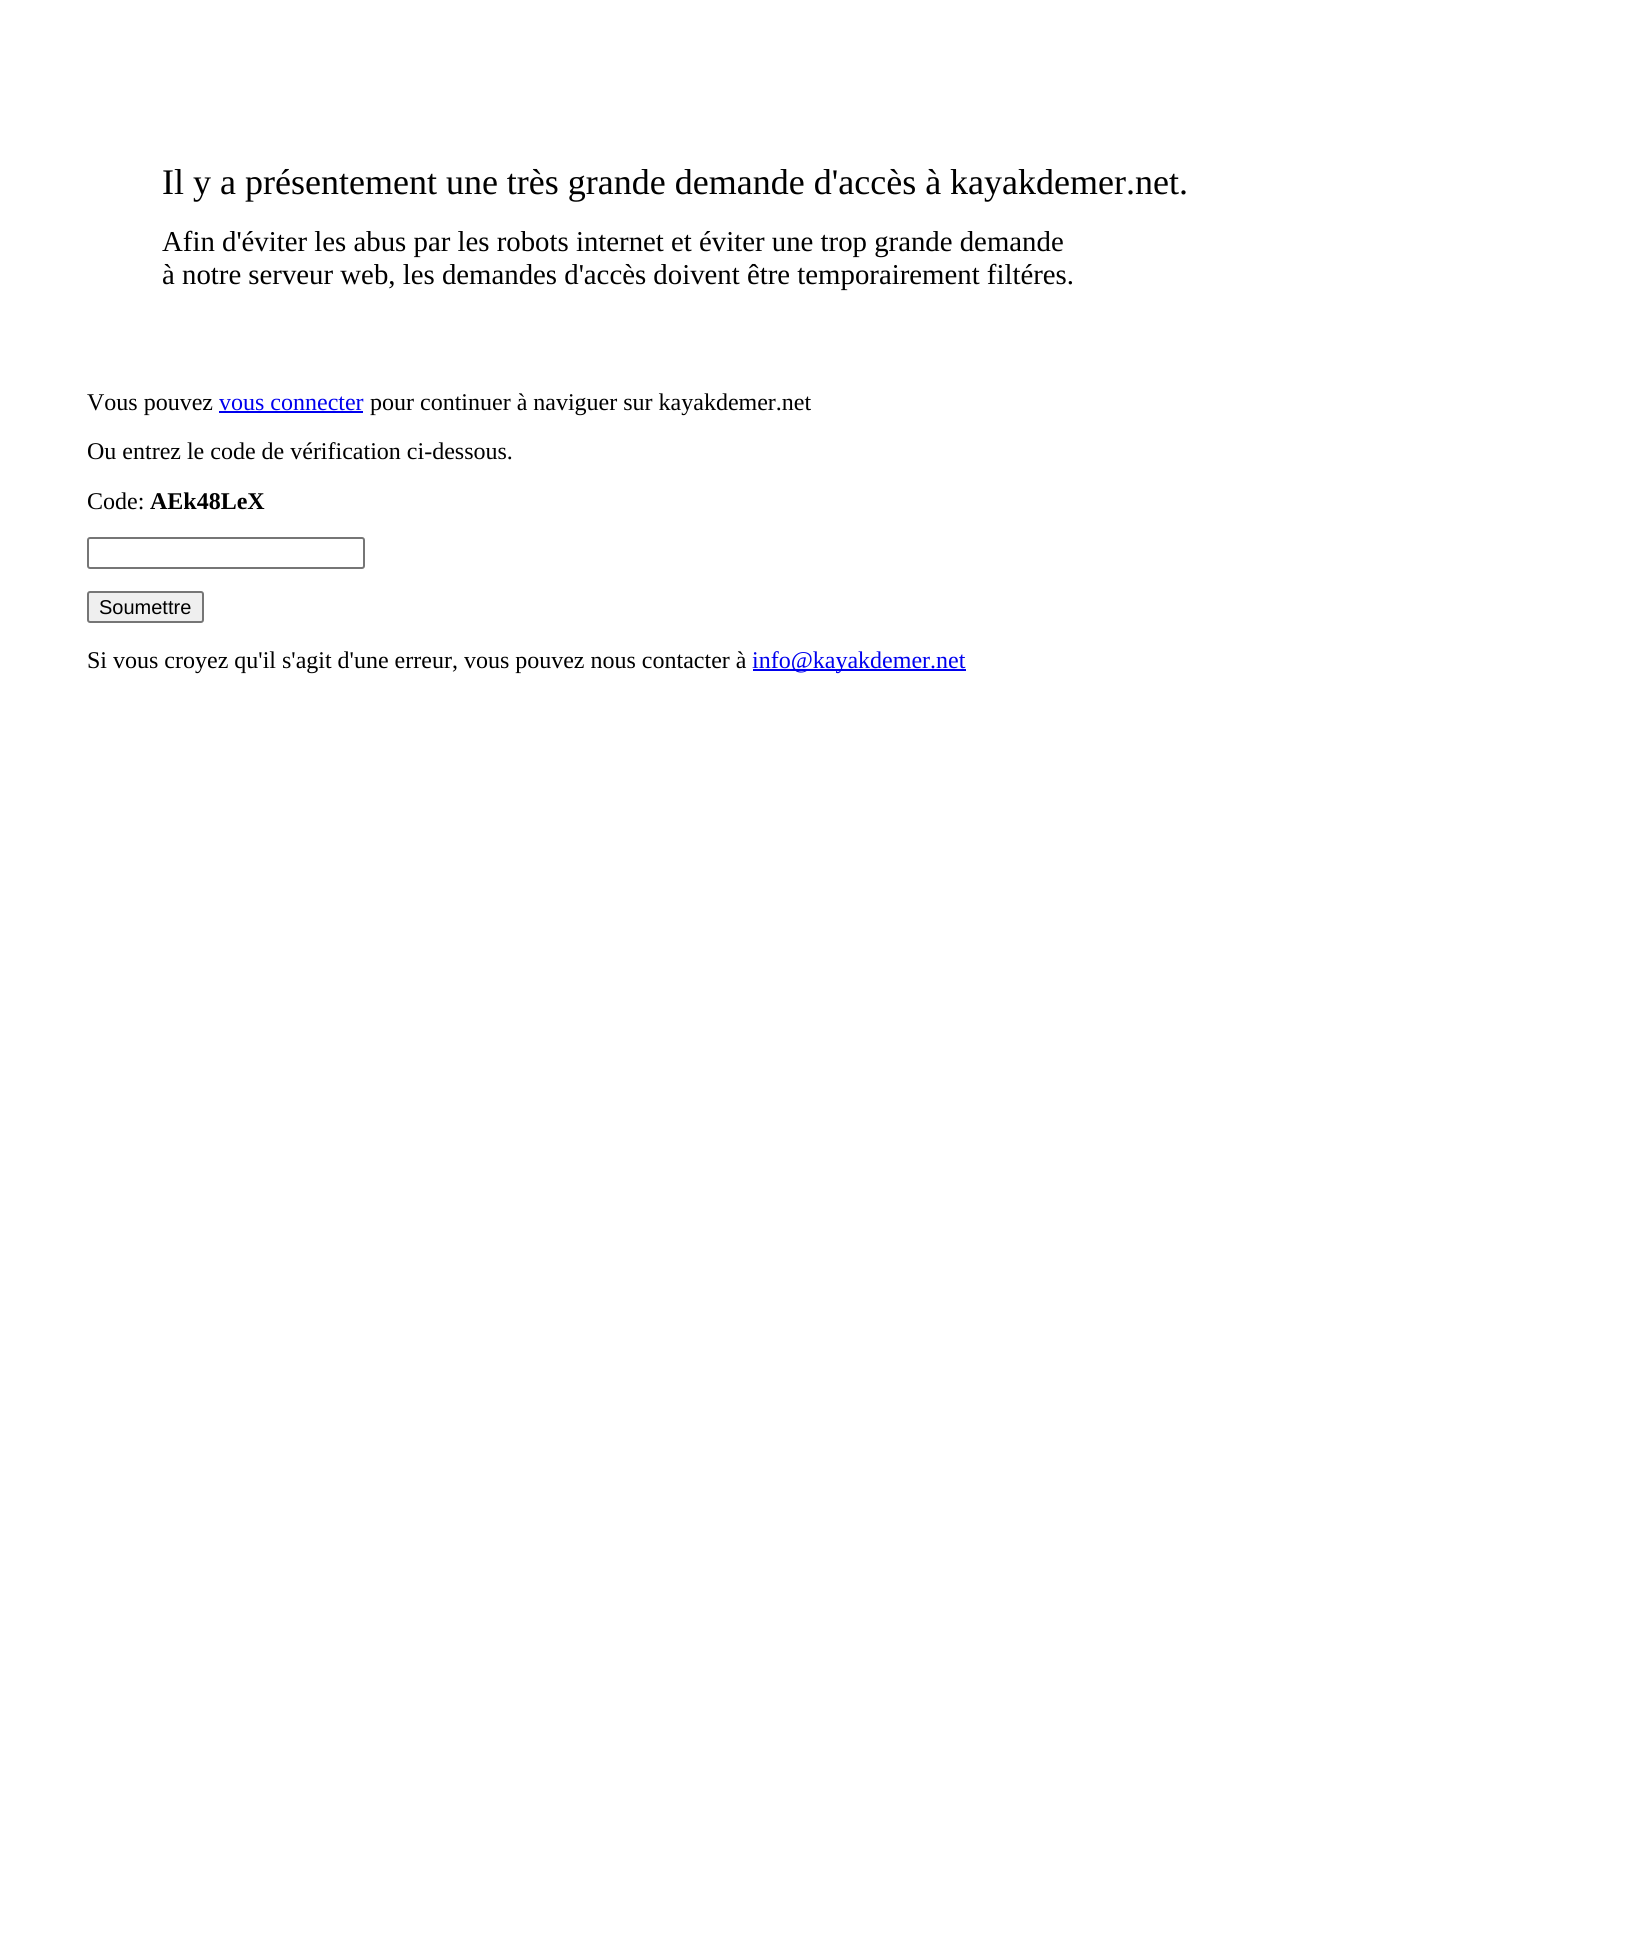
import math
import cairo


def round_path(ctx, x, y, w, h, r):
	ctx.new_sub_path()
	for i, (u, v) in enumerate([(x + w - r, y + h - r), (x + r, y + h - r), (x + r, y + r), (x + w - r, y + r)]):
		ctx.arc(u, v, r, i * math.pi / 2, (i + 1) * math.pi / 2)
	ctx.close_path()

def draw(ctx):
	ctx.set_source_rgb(1, 1, 1)
	ctx.paint()
	ctx.select_font_face('Liberation Serif')
	ctx.set_font_size(36)
	ctx.set_source_rgb(0, 0, 0)
	ctx.move_to(162, 194)
	ctx.show_text('Il y a présentement une très grande demande d\'accès à kayakdemer.net.')
	ctx.set_font_size(28.8)
	ctx.move_to(162, 251)
	ctx.show_text('Afin d\'éviter les abus par les robots internet et éviter une trop grande demande')
	ctx.move_to(162, 284)
	ctx.show_text('à notre serveur web, les demandes d\'accès doivent être temporairement filtéres.')
	ctx.set_font_size(24)
	ctx.move_to(87, 410)
	ctx.show_text('Vous pouvez')
	ctx.set_source_rgb(0, 0, 0.933)
	ctx.move_to(219, 410)
	ctx.show_text('vous connecter')
	ctx.rectangle(219, 411, 144, 2)
	ctx.fill()
	ctx.set_source_rgb(0, 0, 0)
	for x, y, s in [
		(370, 410, 'pour continuer à naviguer sur kayakdemer.net'),
		(87, 459, 'Ou entrez le code de vérification ci-dessous.'),
		(87, 509, 'Code:'),
	]:
		ctx.move_to(x, y)
		ctx.show_text(s)
	ctx.select_font_face('Liberation Serif', cairo.FONT_SLANT_NORMAL, cairo.FONT_WEIGHT_BOLD)
	ctx.move_to(150, 509)
	ctx.show_text('AEk48LeX')
	round_path(ctx, 88, 538, 276, 30, 2)
	ctx.set_source_rgb(0.463, 0.463, 0.463)
	ctx.stroke()
	ctx.set_source_rgb(0.937, 0.937, 0.937)
	round_path(ctx, 88, 592, 115, 30, 2)
	ctx.fill_preserve()
	ctx.set_source_rgb(0.463, 0.463, 0.463)
	ctx.stroke()
	ctx.select_font_face('Liberation Sans')
	ctx.set_font_size(20)
	ctx.set_source_rgb(0, 0, 0)
	ctx.move_to(99, 614)
	ctx.show_text('Soumettre')
	ctx.select_font_face('Liberation Serif')
	ctx.set_font_size(24)
	ctx.move_to(87, 668)
	ctx.show_text('Si vous croyez qu\'il s\'agit d\'une erreur, vous pouvez nous contacter à')
	ctx.set_source_rgb(0, 0, 0.933)
	ctx.rectangle(753, 669, 213, 2)
	ctx.fill()
	ctx.move_to(752, 668)
	ctx.show_text('info@kayakdemer.net')


surface = cairo.ImageSurface(cairo.FORMAT_RGB24, 1631, 1935)
ctx = cairo.Context(surface)
options = cairo.FontOptions()
options.set_hint_metrics(cairo.HINT_METRICS_OFF)
options.set_hint_style(cairo.HINT_STYLE_NONE)
ctx.set_font_options(options)
ctx.set_miter_limit(4)
draw(ctx)
surface.write_to_png('image.png')
